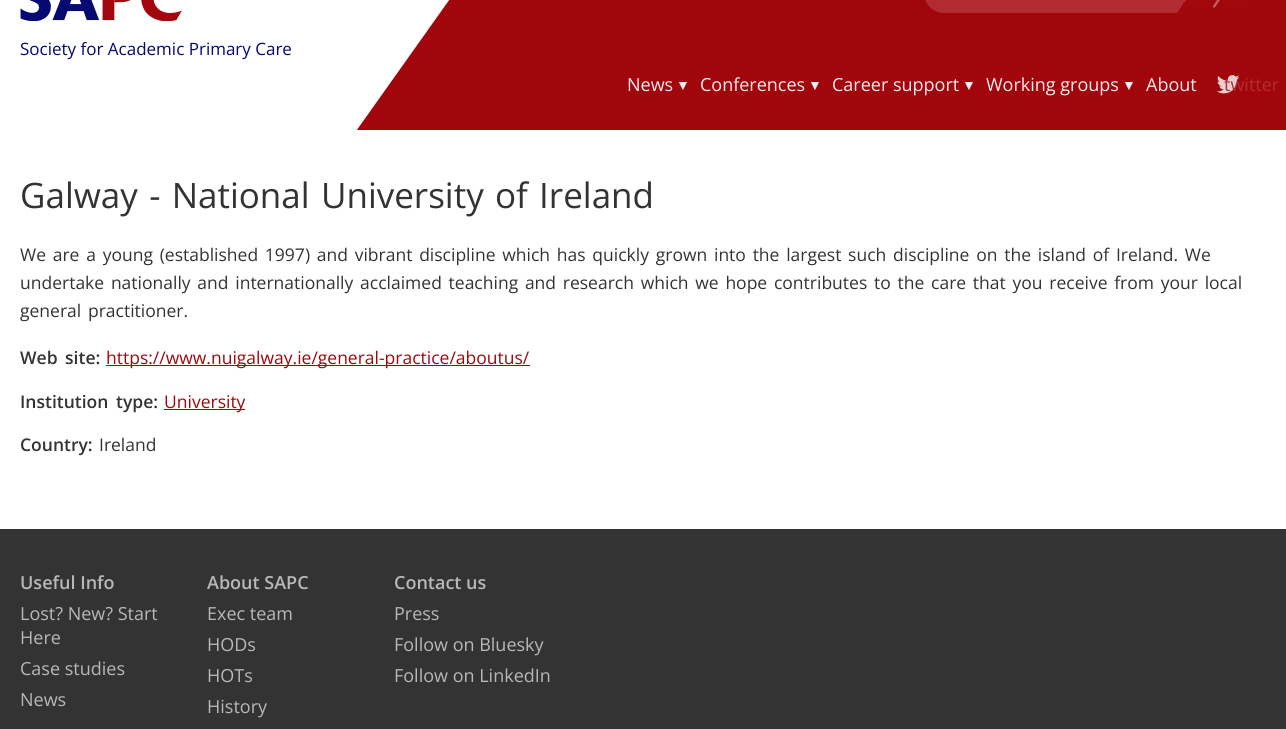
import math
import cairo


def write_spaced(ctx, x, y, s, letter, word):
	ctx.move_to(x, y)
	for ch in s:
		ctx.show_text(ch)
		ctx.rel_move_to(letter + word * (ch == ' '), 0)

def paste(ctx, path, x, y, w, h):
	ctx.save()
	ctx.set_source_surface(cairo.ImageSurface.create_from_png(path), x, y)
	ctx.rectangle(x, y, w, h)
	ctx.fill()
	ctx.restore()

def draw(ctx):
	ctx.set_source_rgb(1, 1, 1)
	ctx.paint()
	ctx.set_source_rgb(0.635, 0.027, 0.051)
	ctx.rectangle(494, 0, 792, 130)
	ctx.fill()
	gradient = cairo.LinearGradient(967, -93, 1205, 74)
	gradient.add_color_stop_rgba(0, 0.69, 0.173, 0.192, 1)
	gradient.add_color_stop_rgba(0.8, 0.69, 0.173, 0.192, 1)
	gradient.add_color_stop_rgba(0.8, 0.635, 0.027, 0.051, 1)
	gradient.add_color_stop_rgba(1, 0.635, 0.027, 0.051, 1)
	ctx.set_source(gradient)
	ctx.new_path()
	ctx.move_to(944, -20)
	ctx.line_to(1248, -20)
	ctx.line_to(1248, 13)
	ctx.line_to(944, 13)
	ctx.curve_to(933, 13, 924, 4, 924, -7)
	ctx.line_to(924, 0)
	ctx.curve_to(924, -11, 933, -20, 944, -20)
	ctx.close_path()
	ctx.fill()
	paste(ctx, 'media/1.png', 1213, 0, 7, 8)
	ctx.save()
	ctx.rectangle(229, 0, 265, 130)
	ctx.clip()
	ctx.set_source_rgb(0.635, 0.027, 0.051)
	ctx.new_path()
	ctx.move_to(496, 310)
	ctx.line_to(496, -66)
	ctx.line_to(229, 310)
	ctx.close_path()
	ctx.fill()
	ctx.restore()
	paste(ctx, 'media/2.png', 20, 0, 162, 21)
	ctx.select_font_face('Open Sans')
	ctx.set_font_size(17)
	ctx.set_source_rgb(0.02, 0.035, 0.443)
	ctx.move_to(20, 55)
	ctx.show_text('Society for Academic Primary Care')
	ctx.set_font_size(18)
	ctx.set_source_rgb(0.976, 0.922, 0.925)
	ctx.move_to(627, 91)
	ctx.show_text('News')
	ctx.select_font_face('Liberation Sans')
	ctx.set_font_size(14)
	ctx.move_to(676, 90)
	ctx.show_text('▼')
	ctx.select_font_face('Open Sans')
	ctx.set_font_size(18)
	ctx.move_to(700, 91)
	ctx.show_text('Conferences')
	ctx.select_font_face('Liberation Sans')
	ctx.set_font_size(14)
	ctx.move_to(808, 90)
	ctx.show_text('▼')
	ctx.select_font_face('Open Sans')
	ctx.set_font_size(18)
	ctx.move_to(832, 91)
	ctx.show_text('Career support')
	ctx.select_font_face('Liberation Sans')
	ctx.set_font_size(14)
	ctx.move_to(962, 90)
	ctx.show_text('▼')
	ctx.select_font_face('Open Sans')
	ctx.set_font_size(18)
	ctx.move_to(986, 91)
	ctx.show_text('Working groups')
	ctx.select_font_face('Liberation Sans')
	ctx.set_font_size(14)
	ctx.move_to(1122, 90)
	ctx.show_text('▼')
	ctx.select_font_face('Open Sans')
	ctx.set_font_size(18)
	ctx.move_to(1146, 91)
	ctx.show_text('About')
	paste(ctx, 'media/3.png', 1217, 75, 23, 19)
	ctx.set_source_rgb(0.69, 0.176, 0.196)
	ctx.move_to(1224, 91)
	ctx.show_text('twitter')
	ctx.set_font_size(35)
	ctx.set_source_rgb(0.2, 0.2, 0.2)
	write_spaced(ctx, 20, 208, 'Galway - National University of Ireland', 0, 2.2)
	ctx.set_font_size(17.5)
	for x, y, s in [
		(20, 261, 'We are a young (established 1997) and vibrant discipline which has quickly grown into the largest such discipline on the island of Ireland. We'),
		(20, 289, 'undertake nationally and internationally acclaimed teaching and research which we hope contributes to the care that you receive from your local'),
		(20, 317, 'general practitioner.'),
	]:
		write_spaced(ctx, x, y, s, 0, 2.2)
	ctx.select_font_face('Open Sans SemiBold')
	write_spaced(ctx, 20, 364, 'Web site:', 0, 3)
	ctx.set_source_rgb(0.635, 0.027, 0.051)
	ctx.rectangle(106, 365, 424, 1)
	ctx.fill()
	ctx.select_font_face('Open Sans')
	ctx.move_to(106, 364)
	ctx.show_text('https://www.nuigalway.ie/general-practice/aboutus/')
	ctx.select_font_face('Open Sans SemiBold')
	ctx.set_source_rgb(0.2, 0.2, 0.2)
	write_spaced(ctx, 20, 408, 'Institution type:', 0, 3)
	ctx.set_source_rgb(0.635, 0.027, 0.051)
	ctx.rectangle(164, 409, 81, 1)
	ctx.fill()
	ctx.select_font_face('Open Sans')
	ctx.move_to(164, 408)
	ctx.show_text('University')
	ctx.select_font_face('Open Sans SemiBold')
	ctx.set_source_rgb(0.2, 0.2, 0.2)
	ctx.move_to(20, 451)
	ctx.show_text('Country:')
	ctx.select_font_face('Open Sans')
	ctx.move_to(99, 451)
	ctx.show_text('Ireland')
	ctx.rectangle(0, 529, 1286, 200)
	ctx.fill()
	ctx.select_font_face('Open Sans SemiBold')
	ctx.set_font_size(18)
	ctx.set_source_rgb(0.722, 0.722, 0.722)
	ctx.move_to(20, 589)
	ctx.show_text('Useful Info')
	ctx.select_font_face('Open Sans')
	for x, y, s in [
		(20, 620, 'Lost? New? Start'),
		(20, 644, 'Here'),
		(20, 675, 'Case studies'),
		(20, 706, 'News'),
	]:
		ctx.move_to(x, y)
		ctx.show_text(s)
	ctx.select_font_face('Open Sans SemiBold')
	ctx.move_to(207, 589)
	ctx.show_text('About SAPC')
	ctx.select_font_face('Open Sans')
	for x, y, s in [
		(207, 620, 'Exec team'),
		(207, 651, 'HODs'),
		(207, 682, 'HOTs'),
		(207, 713, 'History'),
	]:
		ctx.move_to(x, y)
		ctx.show_text(s)
	ctx.select_font_face('Open Sans SemiBold')
	ctx.move_to(394, 589)
	ctx.show_text('Contact us')
	ctx.select_font_face('Open Sans')
	for x, y, s in [
		(394, 620, 'Press'),
		(394, 651, 'Follow on Bluesky'),
		(394, 682, 'Follow on LinkedIn'),
	]:
		ctx.move_to(x, y)
		ctx.show_text(s)


surface = cairo.ImageSurface(cairo.FORMAT_RGB24, 1286, 729)
ctx = cairo.Context(surface)
options = cairo.FontOptions()
options.set_hint_metrics(cairo.HINT_METRICS_OFF)
options.set_hint_style(cairo.HINT_STYLE_NONE)
ctx.set_font_options(options)
ctx.set_miter_limit(4)
draw(ctx)
surface.write_to_png('image.png')
